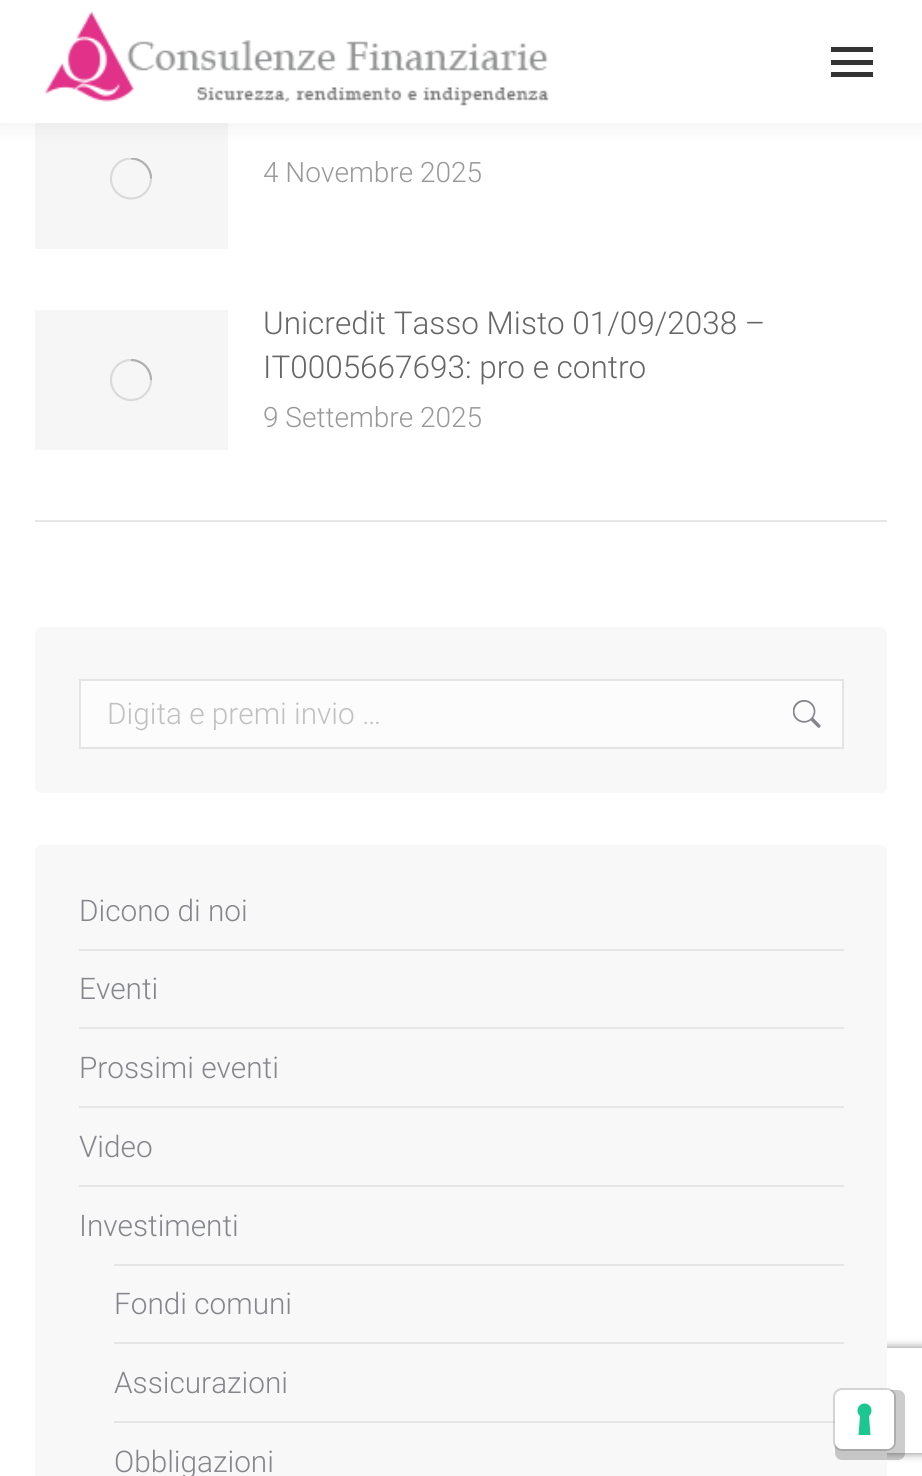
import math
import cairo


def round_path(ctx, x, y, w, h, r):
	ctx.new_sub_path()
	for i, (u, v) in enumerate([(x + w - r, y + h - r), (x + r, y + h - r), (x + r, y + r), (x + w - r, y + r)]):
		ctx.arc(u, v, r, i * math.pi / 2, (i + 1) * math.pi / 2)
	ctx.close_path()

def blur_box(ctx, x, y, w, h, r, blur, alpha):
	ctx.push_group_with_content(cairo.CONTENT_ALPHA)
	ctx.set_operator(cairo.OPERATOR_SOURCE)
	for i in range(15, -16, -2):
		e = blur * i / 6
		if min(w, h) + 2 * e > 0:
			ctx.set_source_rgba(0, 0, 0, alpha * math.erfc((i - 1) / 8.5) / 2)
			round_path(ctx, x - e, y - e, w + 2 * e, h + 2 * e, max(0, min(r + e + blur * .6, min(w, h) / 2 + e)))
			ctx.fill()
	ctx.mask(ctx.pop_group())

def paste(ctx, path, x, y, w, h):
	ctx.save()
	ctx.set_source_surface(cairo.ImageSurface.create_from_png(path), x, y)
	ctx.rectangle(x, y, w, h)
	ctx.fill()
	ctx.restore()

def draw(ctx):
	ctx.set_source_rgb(1, 1, 1)
	ctx.paint()
	ctx.set_source_rgb(0.961, 0.961, 0.961)
	ctx.rectangle(35, 123, 193, 126)
	ctx.fill()
	ctx.save()
	ctx.rectangle(110, 158, 42, 42)
	ctx.clip()
	ctx.arc(131, 178.5, 20, 0, 2 * math.pi)
	ctx.set_source_rgb(0.855, 0.855, 0.855)
	ctx.set_line_width(2.2)
	ctx.stroke()
	ctx.new_path()
	ctx.move_to(151, 178.5)
	ctx.curve_to(151, 167.5, 142, 158.5, 131, 158.5)
	ctx.set_source_rgba(0.204, 0.2, 0.2, 0.25)
	ctx.stroke()
	ctx.restore()
	ctx.set_source_rgb(0, 0, 0)
	blur_box(ctx, -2, -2, 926, 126, 0, 13, 0.07)
	ctx.set_source_rgb(1, 1, 1)
	ctx.rectangle(0, 0, 922, 123)
	ctx.fill()
	paste(ctx, 'media/1.png', 45, 11, 504, 95)
	ctx.set_source_rgb(0.2, 0.2, 0.2)
	ctx.rectangle(831, 47, 42, 5)
	ctx.rectangle(831, 60, 42, 5)
	ctx.rectangle(831, 72, 42, 5)
	ctx.fill()
	ctx.set_source_rgb(0.906, 0.906, 0.906)
	ctx.rectangle(35, 520, 852, 2)
	ctx.fill()
	ctx.select_font_face('Roboto Light')
	ctx.set_font_size(28)
	ctx.set_source_rgb(0.604, 0.6, 0.6)
	ctx.move_to(263, 182)
	ctx.show_text('4 Novembre 2025')
	ctx.set_source_rgb(0.961, 0.961, 0.961)
	ctx.rectangle(35, 310, 193, 140)
	ctx.fill()
	ctx.save()
	ctx.rectangle(110, 359, 42, 42)
	ctx.clip()
	ctx.arc(131, 380, 20, 0, 2 * math.pi)
	ctx.set_source_rgb(0.855, 0.855, 0.855)
	ctx.set_line_width(2.2)
	ctx.stroke()
	ctx.restore()
	ctx.new_path()
	ctx.move_to(151, 380)
	ctx.curve_to(151, 369, 142, 360, 131, 360)
	ctx.set_source_rgba(0.204, 0.2, 0.2, 0.25)
	ctx.set_line_width(2.2)
	ctx.stroke()
	ctx.set_font_size(31.5)
	ctx.set_source_rgb(0.4, 0.4, 0.4)
	ctx.move_to(263, 334)
	ctx.show_text('Unicredit Tasso Misto 01/09/2038 –')
	ctx.move_to(263, 378)
	ctx.show_text('IT0005667693: pro e contro')
	ctx.set_font_size(28)
	ctx.set_source_rgb(0.604, 0.6, 0.6)
	ctx.move_to(263, 427)
	ctx.show_text('9 Settembre 2025')
	ctx.set_source_rgb(0.969, 0.969, 0.969)
	round_path(ctx, 35, 627, 852, 166, 7)
	ctx.fill()
	ctx.set_source_rgb(0.988, 0.988, 0.988)
	ctx.rectangle(80, 680, 763, 68)
	ctx.fill_preserve()
	ctx.set_source_rgb(0.894, 0.894, 0.894)
	ctx.set_line_width(2)
	ctx.stroke()
	ctx.set_font_size(29.75)
	ctx.set_source_rgb(0.757, 0.757, 0.769)
	ctx.move_to(107, 724)
	ctx.show_text('Digita e premi invio …')
	paste(ctx, 'media/2.png', 793, 700, 28, 28)
	ctx.save()
	ctx.set_fill_rule(cairo.FILL_RULE_EVEN_ODD)
	ctx.new_path()
	ctx.move_to(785, 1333)
	ctx.line_to(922, 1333)
	ctx.line_to(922, 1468)
	ctx.line_to(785, 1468)
	ctx.close_path()
	ctx.move_to(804, 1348)
	ctx.line_to(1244, 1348)
	ctx.curve_to(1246, 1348, 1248, 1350, 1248, 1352)
	ctx.line_to(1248, 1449)
	ctx.curve_to(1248, 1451, 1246, 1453, 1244, 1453)
	ctx.line_to(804, 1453)
	ctx.curve_to(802, 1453, 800, 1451, 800, 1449)
	ctx.line_to(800, 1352)
	ctx.curve_to(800, 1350, 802, 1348, 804, 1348)
	ctx.close_path()
	ctx.clip()
	ctx.set_source_rgb(0.502, 0.502, 0.502)
	blur_box(ctx, 800, 1348, 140, 105, 4, 4.5, 1)
	ctx.restore()
	ctx.set_source_rgb(0.969, 0.969, 0.969)
	round_path(ctx, 35, 845, 852, 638, 7)
	ctx.fill()
	ctx.set_source_rgb(0.522, 0.525, 0.549)
	ctx.move_to(79, 921)
	ctx.show_text('Dicono di noi')
	ctx.set_source_rgb(0.902, 0.902, 0.906)
	ctx.rectangle(79, 949, 765, 2)
	ctx.fill()
	ctx.set_source_rgb(0.522, 0.525, 0.549)
	ctx.move_to(79, 999)
	ctx.show_text('Eventi')
	ctx.set_source_rgb(0.902, 0.902, 0.906)
	ctx.rectangle(79, 1027, 765, 2)
	ctx.fill()
	ctx.set_source_rgb(0.522, 0.525, 0.549)
	ctx.move_to(79, 1078)
	ctx.show_text('Prossimi eventi')
	ctx.set_source_rgb(0.902, 0.902, 0.906)
	ctx.rectangle(79, 1106, 765, 2)
	ctx.fill()
	ctx.set_source_rgb(0.522, 0.525, 0.549)
	ctx.move_to(79, 1157)
	ctx.show_text('Video')
	ctx.set_source_rgb(0.902, 0.902, 0.906)
	ctx.rectangle(79, 1185, 765, 2)
	ctx.fill()
	ctx.set_source_rgb(0.522, 0.525, 0.549)
	ctx.move_to(79, 1236)
	ctx.show_text('Investimenti')
	ctx.set_source_rgb(0.902, 0.902, 0.906)
	ctx.rectangle(114, 1264, 730, 2)
	ctx.fill()
	ctx.set_source_rgb(0.522, 0.525, 0.549)
	ctx.move_to(114, 1314)
	ctx.show_text('Fondi comuni')
	ctx.set_source_rgb(0.902, 0.902, 0.906)
	ctx.rectangle(114, 1342, 730, 2)
	ctx.fill()
	ctx.set_source_rgb(0.522, 0.525, 0.549)
	ctx.move_to(114, 1393)
	ctx.show_text('Assicurazioni')
	ctx.set_source_rgb(0.902, 0.902, 0.906)
	ctx.rectangle(114, 1421, 721, 2)
	ctx.fill()
	ctx.set_source_rgb(0.522, 0.525, 0.549)
	ctx.move_to(114, 1472)
	ctx.show_text('Obbligazioni')
	ctx.set_source_rgba(0, 0, 0, 0.2)
	round_path(ctx, 835, 1390, 70, 70, 7)
	ctx.fill()
	round_path(ctx, 834, 1389, 61, 61, 8)
	ctx.set_source_rgba(0, 0, 0, 0.15)
	ctx.stroke()
	ctx.set_source_rgb(1, 1, 1)
	round_path(ctx, 835, 1390, 59, 59, 7)
	ctx.fill()
	ctx.set_source_rgb(0.11, 0.776, 0.569)
	ctx.set_fill_rule(cairo.FILL_RULE_EVEN_ODD)
	ctx.new_path()
	ctx.move_to(864.5, 1403.5)
	ctx.curve_to(871, 1403.5, 874, 1411.5, 869, 1416)
	ctx.line_to(870.5, 1435)
	ctx.line_to(858.5, 1435)
	ctx.line_to(860, 1416)
	ctx.curve_to(855, 1411.5, 858, 1403.5, 864.5, 1403.5)
	ctx.close_path()
	ctx.fill()


surface = cairo.ImageSurface(cairo.FORMAT_RGB24, 922, 1476)
ctx = cairo.Context(surface)
options = cairo.FontOptions()
options.set_hint_metrics(cairo.HINT_METRICS_OFF)
options.set_hint_style(cairo.HINT_STYLE_NONE)
ctx.set_font_options(options)
ctx.set_miter_limit(4)
draw(ctx)
surface.write_to_png('image.png')
